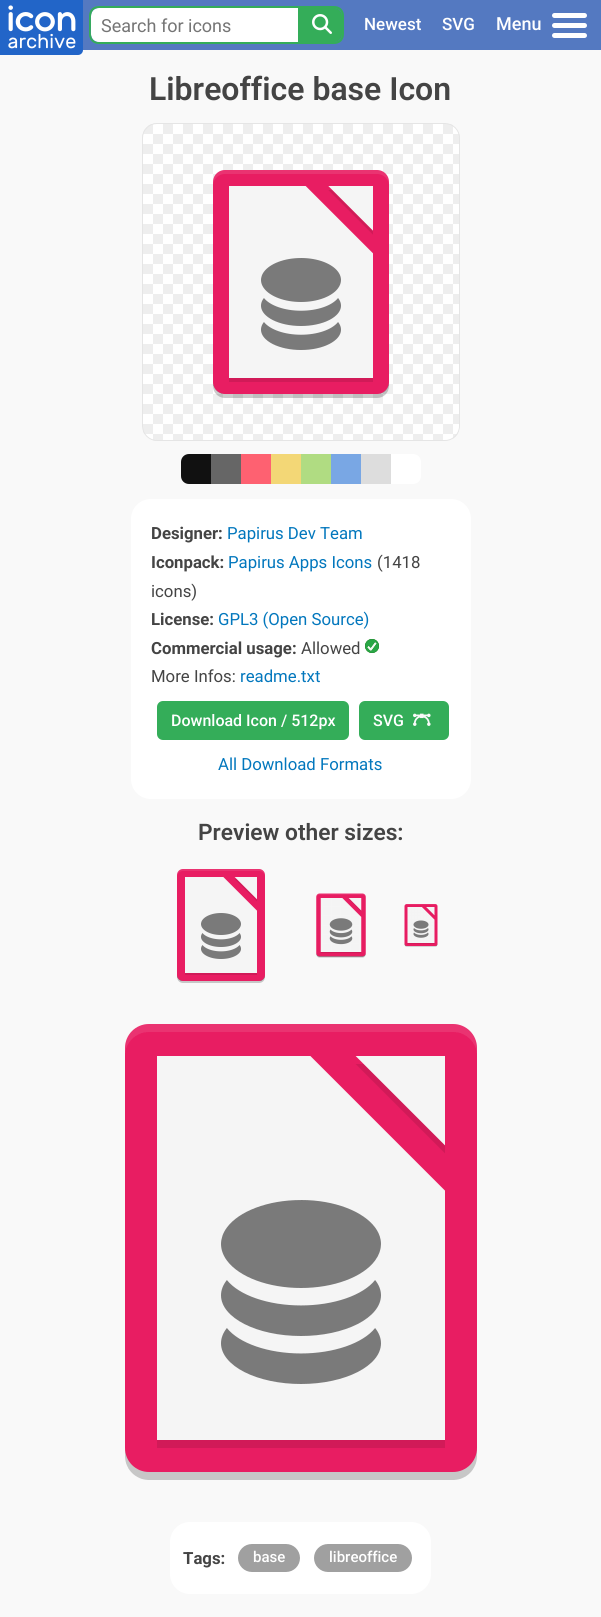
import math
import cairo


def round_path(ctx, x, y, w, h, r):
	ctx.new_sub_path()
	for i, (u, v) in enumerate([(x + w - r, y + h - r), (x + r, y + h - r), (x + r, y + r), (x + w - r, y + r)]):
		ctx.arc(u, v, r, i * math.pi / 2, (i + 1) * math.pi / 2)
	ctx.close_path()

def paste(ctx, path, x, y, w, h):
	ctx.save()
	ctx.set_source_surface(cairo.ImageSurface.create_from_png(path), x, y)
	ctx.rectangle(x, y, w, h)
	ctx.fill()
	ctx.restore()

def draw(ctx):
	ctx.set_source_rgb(0.973, 0.973, 0.973)
	ctx.paint()
	ctx.set_source_rgb(0.329, 0.475, 0.757)
	ctx.rectangle(83, 0, 518, 50)
	ctx.fill()
	paste(ctx, 'media/1.png', 0, 0, 83, 55)
	ctx.set_source_rgb(1, 1, 1)
	ctx.new_path()
	ctx.move_to(99, 8)
	ctx.line_to(298, 8)
	ctx.line_to(298, 42)
	ctx.line_to(99, 42)
	ctx.curve_to(94.5, 42, 91, 38.5, 91, 34)
	ctx.line_to(91, 16)
	ctx.curve_to(91, 11.5, 94.5, 8, 99, 8)
	ctx.close_path()
	ctx.fill()
	ctx.set_source_rgb(0.204, 0.678, 0.349)
	ctx.set_fill_rule(cairo.FILL_RULE_EVEN_ODD)
	ctx.new_path()
	ctx.move_to(99, 6)
	ctx.line_to(298, 6)
	ctx.line_to(298, 44)
	ctx.line_to(99, 44)
	ctx.curve_to(93, 44, 89, 40, 89, 34)
	ctx.line_to(89, 16)
	ctx.curve_to(89, 10, 93, 6, 99, 6)
	ctx.close_path()
	ctx.move_to(99, 8)
	ctx.line_to(298, 8)
	ctx.line_to(298, 42)
	ctx.line_to(97, 42)
	ctx.curve_to(89, 40, 91, 31, 91, 25)
	ctx.curve_to(91, 19, 89, 8, 99, 8)
	ctx.close_path()
	ctx.fill()
	ctx.select_font_face('Roboto')
	ctx.set_font_size(18)
	ctx.set_source_rgb(0.459, 0.459, 0.459)
	ctx.move_to(101, 32)
	ctx.show_text('Search for icons')
	ctx.set_source_rgb(0.204, 0.678, 0.349)
	ctx.new_path()
	ctx.move_to(298, 8)
	ctx.line_to(334, 8)
	ctx.curve_to(338.5, 8, 342, 11.5, 342, 16)
	ctx.line_to(342, 34)
	ctx.curve_to(342, 38.5, 338.5, 42, 334, 42)
	ctx.line_to(298, 42)
	ctx.close_path()
	ctx.fill()
	ctx.new_path()
	ctx.move_to(298, 6)
	ctx.line_to(334, 6)
	ctx.curve_to(340, 6, 344, 10, 344, 16)
	ctx.line_to(344, 34)
	ctx.curve_to(344, 40, 340, 44, 334, 44)
	ctx.line_to(298, 44)
	ctx.close_path()
	ctx.move_to(298, 8)
	ctx.line_to(328, 8)
	ctx.curve_to(343, 8, 342, 11, 342, 25)
	ctx.curve_to(342, 39, 343, 42, 328, 42)
	ctx.line_to(298, 42)
	ctx.close_path()
	ctx.fill()
	paste(ctx, 'media/2.png', 312, 14, 20, 20)
	ctx.select_font_face('Roboto Medium')
	ctx.set_font_size(17)
	ctx.set_source_rgb(1, 1, 1)
	ctx.move_to(364, 30)
	ctx.show_text('Newest')
	ctx.move_to(442, 30)
	ctx.show_text('SVG')
	ctx.set_font_size(18)
	ctx.move_to(496, 30)
	ctx.show_text('Menu')
	round_path(ctx, 552, 13, 35, 5, 2.5)
	ctx.fill()
	round_path(ctx, 552, 23, 35, 5, 2.5)
	ctx.fill()
	round_path(ctx, 552, 33, 35, 5, 2.5)
	ctx.fill()
	ctx.select_font_face('Roboto SemiBold')
	ctx.set_font_size(32)
	ctx.set_source_rgb(0.267, 0.267, 0.267)
	ctx.move_to(149, 100)
	ctx.show_text('Libreoffice base Icon')
	paste(ctx, 'media/3.png', 142, 123, 318, 318)
	round_path(ctx, 142.5, 123.5, 317, 317, 14.5)
	ctx.set_source_rgb(0.898, 0.898, 0.898)
	ctx.set_line_width(1)
	ctx.stroke()
	paste(ctx, 'media/4.png', 213, 170, 176, 228)
	ctx.set_source_rgb(0.067, 0.067, 0.067)
	ctx.new_path()
	ctx.move_to(189, 454)
	ctx.line_to(211, 454)
	ctx.line_to(211, 484)
	ctx.line_to(189, 484)
	ctx.curve_to(184.5, 484, 181, 480.5, 181, 476)
	ctx.line_to(181, 462)
	ctx.curve_to(181, 457.5, 184.5, 454, 189, 454)
	ctx.close_path()
	ctx.fill()
	ctx.set_source_rgb(0.4, 0.4, 0.4)
	ctx.rectangle(211, 454, 30, 30)
	ctx.fill()
	ctx.set_source_rgb(0.996, 0.38, 0.443)
	ctx.rectangle(241, 454, 30, 30)
	ctx.fill()
	ctx.set_source_rgb(0.953, 0.843, 0.463)
	ctx.rectangle(271, 454, 30, 30)
	ctx.fill()
	ctx.set_source_rgb(0.69, 0.863, 0.51)
	ctx.rectangle(301, 454, 30, 30)
	ctx.fill()
	ctx.set_source_rgb(0.475, 0.655, 0.894)
	ctx.rectangle(331, 454, 30, 30)
	ctx.fill()
	ctx.set_source_rgb(0.867, 0.867, 0.867)
	ctx.rectangle(361, 454, 30, 30)
	ctx.fill()
	ctx.set_source_rgb(1, 1, 1)
	ctx.new_path()
	ctx.move_to(391, 454)
	ctx.line_to(413, 454)
	ctx.curve_to(417.5, 454, 421, 457.5, 421, 462)
	ctx.line_to(421, 476)
	ctx.curve_to(421, 480.5, 417.5, 484, 413, 484)
	ctx.line_to(391, 484)
	ctx.close_path()
	ctx.fill()
	round_path(ctx, 131, 499, 340, 300, 20)
	ctx.fill()
	ctx.select_font_face('Roboto', cairo.FONT_SLANT_NORMAL, cairo.FONT_WEIGHT_BOLD)
	ctx.set_font_size(16.75)
	ctx.set_source_rgb(0.267, 0.267, 0.267)
	ctx.move_to(151, 539)
	ctx.show_text('Designer:')
	ctx.select_font_face('Roboto')
	ctx.set_source_rgb(0.008, 0.467, 0.741)
	ctx.move_to(227, 539)
	ctx.show_text('Papirus Dev Team')
	ctx.select_font_face('Roboto', cairo.FONT_SLANT_NORMAL, cairo.FONT_WEIGHT_BOLD)
	ctx.set_source_rgb(0.267, 0.267, 0.267)
	ctx.move_to(151, 568)
	ctx.show_text('Iconpack:')
	ctx.select_font_face('Roboto')
	ctx.set_source_rgb(0.008, 0.467, 0.741)
	ctx.move_to(228, 568)
	ctx.show_text('Papirus Apps Icons')
	ctx.set_source_rgb(0.267, 0.267, 0.267)
	ctx.move_to(377, 568)
	ctx.show_text('(1418')
	ctx.move_to(151, 597)
	ctx.show_text('icons)')
	ctx.select_font_face('Roboto', cairo.FONT_SLANT_NORMAL, cairo.FONT_WEIGHT_BOLD)
	ctx.move_to(151, 625)
	ctx.show_text('License:')
	ctx.select_font_face('Roboto')
	ctx.set_source_rgb(0.008, 0.467, 0.741)
	ctx.move_to(218, 625)
	ctx.show_text('GPL3 (Open Source)')
	ctx.select_font_face('Roboto', cairo.FONT_SLANT_NORMAL, cairo.FONT_WEIGHT_BOLD)
	ctx.set_source_rgb(0.267, 0.267, 0.267)
	ctx.move_to(151, 654)
	ctx.show_text('Commercial usage:')
	ctx.select_font_face('Roboto')
	ctx.move_to(301, 654)
	ctx.show_text('Allowed')
	paste(ctx, 'media/5.png', 365, 639, 14, 14)
	ctx.move_to(151, 682)
	ctx.show_text('More Infos:')
	ctx.set_source_rgb(0.008, 0.467, 0.741)
	ctx.move_to(240, 682)
	ctx.show_text('readme.txt')
	ctx.set_source_rgb(0.204, 0.678, 0.349)
	round_path(ctx, 157, 701, 192, 39, 6)
	ctx.fill()
	ctx.select_font_face('Roboto Medium')
	ctx.set_font_size(16)
	ctx.set_source_rgb(1, 1, 1)
	ctx.move_to(171, 726)
	ctx.show_text('Download Icon / 512px')
	ctx.set_source_rgb(0.204, 0.678, 0.349)
	round_path(ctx, 359, 701, 90, 39, 6)
	ctx.fill()
	ctx.set_source_rgb(1, 1, 1)
	ctx.move_to(373, 726)
	ctx.show_text('SVG')
	paste(ctx, 'media/6.png', 413, 713, 18, 13)
	ctx.select_font_face('Roboto')
	ctx.set_font_size(16.75)
	ctx.set_source_rgb(0.008, 0.467, 0.741)
	ctx.move_to(218, 770)
	ctx.show_text('All Download Formats')
	ctx.select_font_face('Roboto SemiBold')
	ctx.set_font_size(22.75)
	ctx.set_source_rgb(0.267, 0.267, 0.267)
	ctx.move_to(198, 840)
	ctx.show_text('Preview other sizes:')
	paste(ctx, 'media/7.png', 177, 869, 88, 114)
	paste(ctx, 'media/8.png', 316, 893, 50, 65)
	paste(ctx, 'media/9.png', 404, 904, 34, 43)
	paste(ctx, 'media/10.png', 125, 1024, 352, 456)
	ctx.set_source_rgb(1, 1, 1)
	round_path(ctx, 170, 1522, 261, 72, 20)
	ctx.fill()
	ctx.select_font_face('Roboto', cairo.FONT_SLANT_NORMAL, cairo.FONT_WEIGHT_BOLD)
	ctx.set_font_size(16.75)
	ctx.set_source_rgb(0.267, 0.267, 0.267)
	ctx.move_to(183, 1564)
	ctx.show_text('Tags:')
	ctx.set_source_rgb(0.627, 0.627, 0.627)
	round_path(ctx, 238, 1544, 62, 28, 14)
	ctx.fill()
	ctx.select_font_face('Roboto Medium')
	ctx.set_font_size(15)
	ctx.set_source_rgb(1, 1, 1)
	ctx.move_to(253, 1562)
	ctx.show_text('base')
	ctx.set_source_rgb(0.627, 0.627, 0.627)
	round_path(ctx, 314, 1544, 98, 28, 14)
	ctx.fill()
	ctx.set_source_rgb(1, 1, 1)
	ctx.move_to(329, 1562)
	ctx.show_text('libreoffice')


surface = cairo.ImageSurface(cairo.FORMAT_RGB24, 601, 1617)
ctx = cairo.Context(surface)
options = cairo.FontOptions()
options.set_hint_metrics(cairo.HINT_METRICS_OFF)
options.set_hint_style(cairo.HINT_STYLE_NONE)
ctx.set_font_options(options)
ctx.set_miter_limit(4)
draw(ctx)
surface.write_to_png('image.png')
